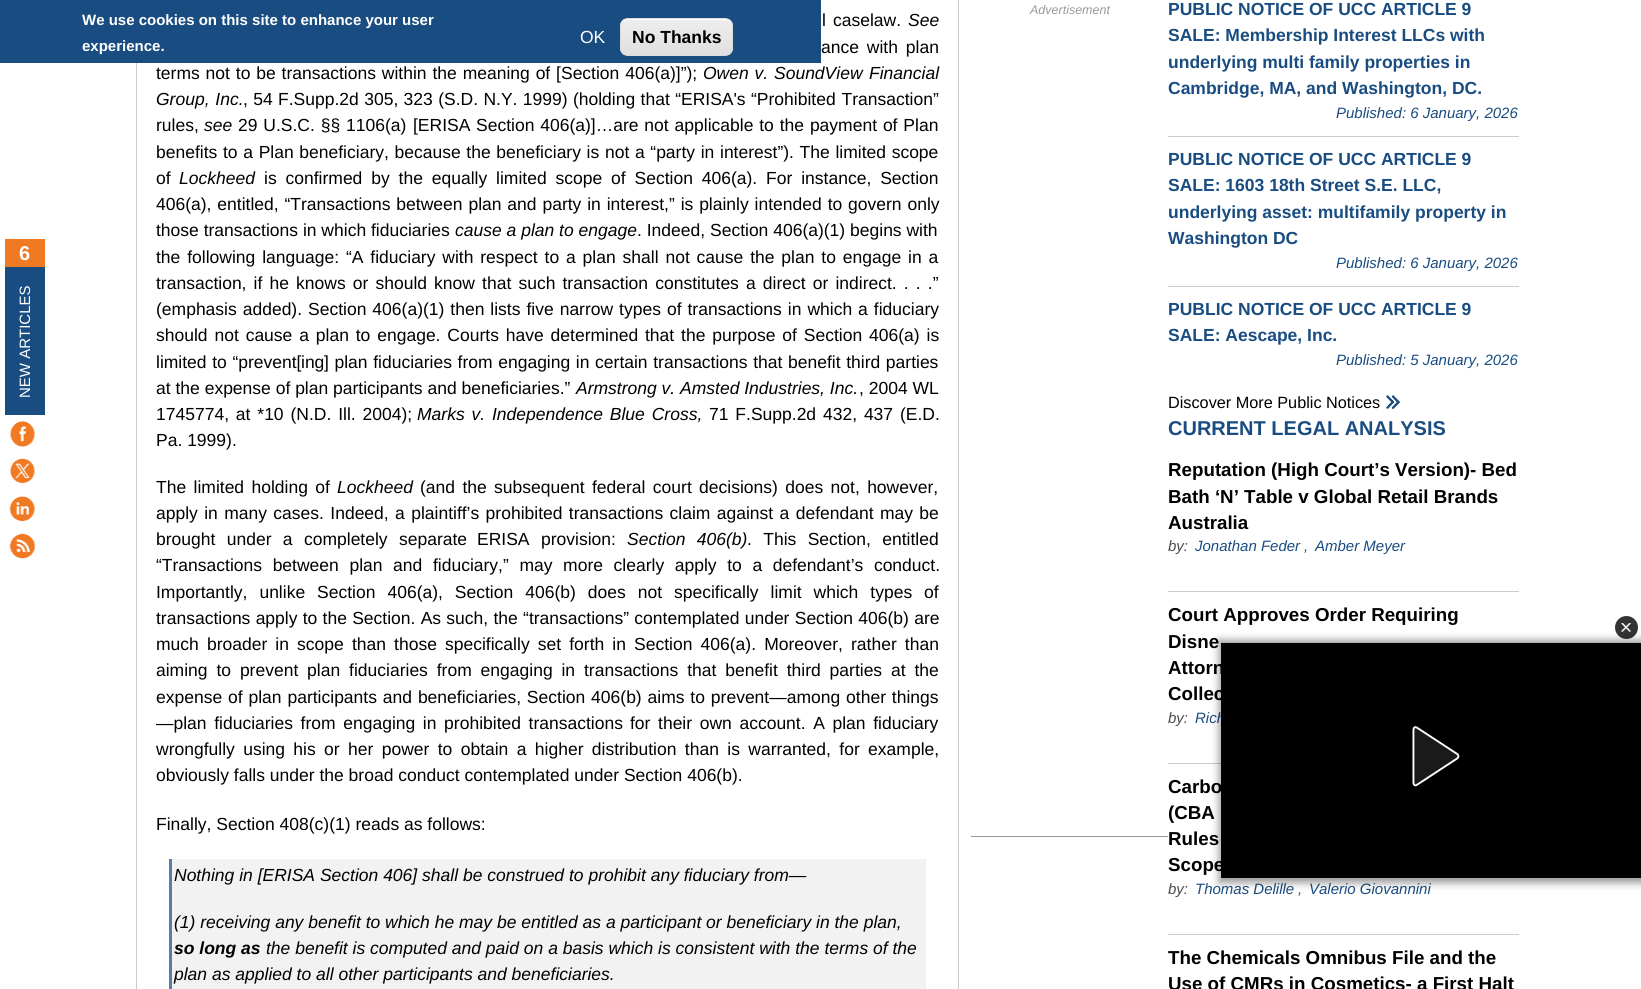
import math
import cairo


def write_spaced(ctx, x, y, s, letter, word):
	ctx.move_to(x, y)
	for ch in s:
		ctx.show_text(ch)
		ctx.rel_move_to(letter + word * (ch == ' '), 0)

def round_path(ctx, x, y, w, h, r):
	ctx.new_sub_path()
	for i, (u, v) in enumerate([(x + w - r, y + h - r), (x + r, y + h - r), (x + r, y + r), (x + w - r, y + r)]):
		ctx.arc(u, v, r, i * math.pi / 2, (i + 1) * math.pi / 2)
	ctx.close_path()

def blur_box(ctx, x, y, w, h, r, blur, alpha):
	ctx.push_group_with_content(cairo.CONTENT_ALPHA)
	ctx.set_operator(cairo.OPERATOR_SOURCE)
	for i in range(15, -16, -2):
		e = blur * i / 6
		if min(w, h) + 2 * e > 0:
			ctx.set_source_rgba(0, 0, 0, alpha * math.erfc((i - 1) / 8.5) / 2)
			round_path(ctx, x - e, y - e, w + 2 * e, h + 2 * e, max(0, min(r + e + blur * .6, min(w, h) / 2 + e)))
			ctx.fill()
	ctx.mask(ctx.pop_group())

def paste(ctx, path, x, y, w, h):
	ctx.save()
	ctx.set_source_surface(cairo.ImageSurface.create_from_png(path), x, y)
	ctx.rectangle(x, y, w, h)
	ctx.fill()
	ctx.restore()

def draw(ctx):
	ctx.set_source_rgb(1, 1, 1)
	ctx.paint()
	ctx.set_source_rgb(0.941, 0.478, 0.133)
	ctx.rectangle(5, 239, 40, 28)
	ctx.fill()
	ctx.select_font_face('Liberation Sans', cairo.FONT_SLANT_NORMAL, cairo.FONT_WEIGHT_BOLD)
	ctx.set_font_size(20)
	ctx.set_source_rgb(1, 1, 1)
	ctx.move_to(19, 260)
	ctx.show_text('6')
	ctx.set_source_rgb(0.098, 0.298, 0.506)
	ctx.rectangle(5, 267, 40, 148)
	ctx.fill()
	ctx.select_font_face('Liberation Sans')
	ctx.set_font_size(15)
	ctx.set_source_rgb(1, 1, 1)
	ctx.save()
	ctx.translate(30, 398)
	ctx.rotate(-90 * math.pi / 180)
	ctx.move_to(0, 0)
	ctx.show_text('NEW ARTICLES')
	ctx.restore()
	paste(ctx, 'media/1.png', 9, 421, 26, 26)
	paste(ctx, 'media/2.png', 9, 458, 26, 25)
	paste(ctx, 'media/3.png', 9, 496, 26, 26)
	paste(ctx, 'media/4.png', 9, 533, 27, 26)
	ctx.set_source_rgb(0.6, 0.6, 0.6)
	ctx.rectangle(971, 836, 197, 1)
	ctx.fill()
	ctx.select_font_face('Liberation Sans', cairo.FONT_SLANT_ITALIC)
	ctx.set_font_size(12.5)
	ctx.move_to(1030, 14)
	ctx.show_text('Advertisement')
	ctx.set_source_rgb(0.796, 0.796, 0.796)
	ctx.rectangle(1168, 136, 351, 1)
	ctx.fill()
	ctx.select_font_face('Liberation Sans', cairo.FONT_SLANT_NORMAL, cairo.FONT_WEIGHT_BOLD)
	ctx.set_font_size(17.5)
	ctx.set_source_rgb(0.098, 0.298, 0.506)
	for x, y, s in [
		(1168, 15, 'PUBLIC NOTICE OF UCC ARTICLE 9'),
		(1168, 41, 'SALE: Membership Interest LLCs with'),
		(1168, 68, 'underlying multi family properties in'),
		(1168, 94, 'Cambridge, MA, and Washington, DC.'),
	]:
		ctx.move_to(x, y)
		ctx.show_text(s)
	ctx.select_font_face('Liberation Sans', cairo.FONT_SLANT_ITALIC)
	ctx.set_font_size(15)
	ctx.move_to(1336, 118)
	ctx.show_text('Published: 6 January, 2026')
	ctx.set_source_rgb(0.796, 0.796, 0.796)
	ctx.rectangle(1168, 286, 351, 1)
	ctx.fill()
	ctx.select_font_face('Liberation Sans', cairo.FONT_SLANT_NORMAL, cairo.FONT_WEIGHT_BOLD)
	ctx.set_font_size(17.5)
	ctx.set_source_rgb(0.098, 0.298, 0.506)
	for x, y, s in [
		(1168, 165, 'PUBLIC NOTICE OF UCC ARTICLE 9'),
		(1168, 191, 'SALE: 1603 18th Street S.E. LLC,'),
		(1168, 218, 'underlying asset: multifamily property in'),
		(1168, 244, 'Washington DC'),
	]:
		ctx.move_to(x, y)
		ctx.show_text(s)
	ctx.select_font_face('Liberation Sans', cairo.FONT_SLANT_ITALIC)
	ctx.set_font_size(15)
	ctx.move_to(1336, 268)
	ctx.show_text('Published: 6 January, 2026')
	ctx.select_font_face('Liberation Sans', cairo.FONT_SLANT_NORMAL, cairo.FONT_WEIGHT_BOLD)
	ctx.set_font_size(17.5)
	ctx.move_to(1168, 315)
	ctx.show_text('PUBLIC NOTICE OF UCC ARTICLE 9')
	ctx.move_to(1168, 341)
	ctx.show_text('SALE: Aescape, Inc.')
	ctx.select_font_face('Liberation Sans', cairo.FONT_SLANT_ITALIC)
	ctx.set_font_size(15)
	ctx.move_to(1336, 365)
	ctx.show_text('Published: 5 January, 2026')
	ctx.select_font_face('Liberation Sans')
	ctx.set_font_size(16.25)
	ctx.set_source_rgb(0, 0, 0)
	ctx.move_to(1168, 408)
	ctx.show_text('Discover More Public Notices')
	paste(ctx, 'media/5.png', 1386, 395, 14, 14)
	ctx.select_font_face('Liberation Sans', cairo.FONT_SLANT_NORMAL, cairo.FONT_WEIGHT_BOLD)
	ctx.set_font_size(20)
	ctx.set_source_rgb(0.098, 0.298, 0.506)
	ctx.move_to(1168, 435)
	ctx.show_text('CURRENT LEGAL ANALYSIS')
	ctx.set_source_rgb(0.796, 0.796, 0.796)
	ctx.rectangle(1168, 591, 351, 1)
	ctx.fill()
	ctx.set_font_size(18.75)
	ctx.set_source_rgb(0, 0, 0)
	for x, y, s in [
		(1168, 476, 'Reputation (High Court’s Version)- Bed'),
		(1168, 503, 'Bath ‘N’ Table v Global Retail Brands'),
		(1168, 529, 'Australia'),
	]:
		ctx.move_to(x, y)
		ctx.show_text(s)
	ctx.select_font_face('Liberation Sans', cairo.FONT_SLANT_ITALIC)
	ctx.set_font_size(15)
	ctx.set_source_rgb(0.298, 0.298, 0.298)
	ctx.move_to(1168, 551)
	ctx.show_text('by:')
	ctx.set_source_rgb(0.098, 0.298, 0.506)
	ctx.move_to(1195, 551)
	ctx.show_text('Jonathan Feder')
	ctx.set_source_rgb(0.298, 0.298, 0.298)
	ctx.move_to(1304, 551)
	ctx.show_text(',')
	ctx.set_source_rgb(0.098, 0.298, 0.506)
	ctx.move_to(1315, 551)
	ctx.show_text('Amber Meyer')
	ctx.set_source_rgb(0.796, 0.796, 0.796)
	ctx.rectangle(1168, 763, 53, 1)
	ctx.fill()
	ctx.select_font_face('Liberation Sans', cairo.FONT_SLANT_NORMAL, cairo.FONT_WEIGHT_BOLD)
	ctx.set_font_size(18.75)
	ctx.set_source_rgb(0, 0, 0)
	for x, y, s in [
		(1168, 621, 'Court Approves Order Requiring'),
		(1168, 648, 'Disne'),
		(1168, 674, 'Attorn'),
		(1168, 700, 'Collec'),
	]:
		ctx.move_to(x, y)
		ctx.show_text(s)
	ctx.select_font_face('Liberation Sans', cairo.FONT_SLANT_ITALIC)
	ctx.set_font_size(15)
	ctx.set_source_rgb(0.298, 0.298, 0.298)
	ctx.move_to(1168, 723)
	ctx.show_text('by:')
	ctx.set_source_rgb(0.098, 0.298, 0.506)
	ctx.move_to(1195, 723)
	ctx.show_text('Rich')
	ctx.set_source_rgb(0.796, 0.796, 0.796)
	ctx.rectangle(1168, 934, 351, 1)
	ctx.fill()
	ctx.select_font_face('Liberation Sans', cairo.FONT_SLANT_NORMAL, cairo.FONT_WEIGHT_BOLD)
	ctx.set_font_size(18.75)
	ctx.set_source_rgb(0, 0, 0)
	for x, y, s in [
		(1168, 793, 'Carbo'),
		(1168, 819, '(CBA'),
		(1168, 845, 'Rules'),
		(1168, 871, 'Scope'),
	]:
		ctx.move_to(x, y)
		ctx.show_text(s)
	ctx.select_font_face('Liberation Sans', cairo.FONT_SLANT_ITALIC)
	ctx.set_font_size(15)
	ctx.set_source_rgb(0.298, 0.298, 0.298)
	ctx.move_to(1168, 894)
	ctx.show_text('by:')
	ctx.set_source_rgb(0.098, 0.298, 0.506)
	ctx.move_to(1195, 894)
	ctx.show_text('Thomas Delille')
	ctx.set_source_rgb(0.298, 0.298, 0.298)
	ctx.move_to(1298, 894)
	ctx.show_text(',')
	ctx.set_source_rgb(0.098, 0.298, 0.506)
	ctx.move_to(1309, 894)
	ctx.show_text('Valerio Giovannini')
	ctx.select_font_face('Liberation Sans', cairo.FONT_SLANT_NORMAL, cairo.FONT_WEIGHT_BOLD)
	ctx.set_font_size(18.75)
	ctx.set_source_rgb(0, 0, 0)
	ctx.move_to(1168, 964)
	ctx.show_text('The Chemicals Omnibus File and the')
	ctx.move_to(1168, 990)
	ctx.show_text('Use of CMRs in Cosmetics- a First Halt')
	ctx.set_source_rgb(0.2, 0.2, 0.2)
	ctx.new_path()
	ctx.arc(1626.5, 627.5, 11.5, 0, 2 * math.pi)
	ctx.fill()
	paste(ctx, 'media/6.png', 1621, 623, 10, 9)
	ctx.set_source_rgb(0, 0, 0)
	blur_box(ctx, 1219, 640, 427, 243, 0, 4, 0.4)
	ctx.set_source_rgb(0, 0, 0)
	ctx.rectangle(1221, 643, 420, 235)
	ctx.fill()
	paste(ctx, 'media/7.png', 1412, 726, 48, 61)
	ctx.set_source_rgb(0.796, 0.796, 0.796)
	ctx.rectangle(958, 0, 1, 989)
	ctx.fill()
	ctx.rectangle(136, 63, 1, 926)
	ctx.fill()
	ctx.select_font_face('Liberation Sans')
	ctx.set_font_size(17.5)
	ctx.set_source_rgb(0, 0, 0)
	write_spaced(ctx, 822, 26, 'l', 0, 2)
	ctx.move_to(833, 26)
	ctx.show_text('caselaw.')
	ctx.select_font_face('Liberation Sans', cairo.FONT_SLANT_ITALIC)
	ctx.move_to(908, 26)
	ctx.show_text('See')
	ctx.select_font_face('Liberation Sans')
	write_spaced(ctx, 821, 53, 'ance with plan', 0, 3)
	write_spaced(ctx, 156, 79, 'terms not to be transactions within the meaning of [Section 406(a)]”);', 0, 1)
	ctx.select_font_face('Liberation Sans', cairo.FONT_SLANT_ITALIC)
	write_spaced(ctx, 703, 79, 'Owen v.', 0, 1)
	ctx.move_to(774, 79)
	ctx.show_text('SoundView')
	ctx.move_to(869, 79)
	ctx.show_text('Financial')
	write_spaced(ctx, 156, 105, 'Group, Inc.', 0, 1)
	ctx.select_font_face('Liberation Sans')
	write_spaced(ctx, 243, 105, ', 54 F.Supp.2d 305, 323 (S.D. N.Y. 1999) (holding that “', 0, 0.5)
	ctx.move_to(681, 105)
	ctx.show_text('ERISA\'s')
	write_spaced(ctx, 751, 105, '“Prohibited Transaction”', 0, 1)
	ctx.move_to(156, 131)
	ctx.show_text('rules,')
	ctx.select_font_face('Liberation Sans', cairo.FONT_SLANT_ITALIC)
	ctx.move_to(204, 131)
	ctx.show_text('see')
	ctx.select_font_face('Liberation Sans')
	write_spaced(ctx, 238, 131, '29 U.S.C. §§ 1106(a)', 0, 1)
	ctx.move_to(413, 131)
	ctx.show_text('[ERISA')
	write_spaced(ctx, 476, 131, 'Section 406(a)]…are not applicable to the payment of Plan', 0, 1)
	write_spaced(ctx, 156, 158, 'benefits to a Plan beneficiary, because the beneficiary is not a “party in interest”). The limited scope', 0, 0.8)
	ctx.move_to(156, 184)
	ctx.show_text('of')
	ctx.select_font_face('Liberation Sans', cairo.FONT_SLANT_ITALIC)
	ctx.move_to(179, 184)
	ctx.show_text('Lockheed')
	ctx.select_font_face('Liberation Sans')
	write_spaced(ctx, 264, 184, 'is confirmed by the equally limited scope of Section 406(a). For instance, Section', 0, 4)
	write_spaced(ctx, 156, 210, '406(a), entitled, “Transactions between plan and party in interest,” is plainly intended to govern only', 0, 1)
	ctx.move_to(156, 236)
	ctx.show_text('those transactions in which fiduciaries')
	ctx.select_font_face('Liberation Sans', cairo.FONT_SLANT_ITALIC)
	ctx.move_to(455, 236)
	ctx.show_text('cause a plan to engage')
	ctx.select_font_face('Liberation Sans')
	ctx.move_to(637, 236)
	ctx.show_text('. Indeed, Section 406(a)(1) begins with')
	write_spaced(ctx, 156, 263, 'the following language: “A fiduciary with respect to a plan shall not cause the plan to engage in a', 0, 2)
	write_spaced(ctx, 156, 289, 'transaction, if he knows or should know that such transaction constitutes a direct or indirect. . . .”', 0, 2.25)
	write_spaced(ctx, 156, 315, '(emphasis added). Section 406(a)(1) then lists five narrow types of transactions in which a fiduciary', 0, 1.1)
	write_spaced(ctx, 156, 341, 'should not cause a plan to engage. Courts have determined that the purpose of Section 406(a) is', 0, 2)
	write_spaced(ctx, 156, 368, 'limited to “prevent[', 0, 0.75)
	ctx.move_to(301, 368)
	ctx.show_text('ing')
	write_spaced(ctx, 324, 368, '] plan fiduciaries from engaging in certain transactions that benefit third parties', 0, 0.75)
	ctx.move_to(156, 394)
	ctx.show_text('at the expense of plan participants and beneficiaries.”')
	ctx.select_font_face('Liberation Sans', cairo.FONT_SLANT_ITALIC)
	ctx.move_to(576, 394)
	ctx.show_text('Armstrong v. Amsted Industries, Inc.')
	ctx.select_font_face('Liberation Sans')
	ctx.move_to(859, 394)
	ctx.show_text(', 2004 WL')
	write_spaced(ctx, 156, 420, '1745774, at *10 (N.D. Ill. 2004);', 0, 2)
	ctx.select_font_face('Liberation Sans', cairo.FONT_SLANT_ITALIC)
	write_spaced(ctx, 417, 420, 'Marks v. Independence Blue Cross,', 0, 2)
	ctx.select_font_face('Liberation Sans')
	write_spaced(ctx, 709, 420, '71 F.Supp.2d 432, 437 (E.D.', 0, 2)
	ctx.move_to(156, 446)
	ctx.show_text('Pa. 1999).')
	write_spaced(ctx, 156, 493, 'The limited holding of', 0, 2.5)
	ctx.select_font_face('Liberation Sans', cairo.FONT_SLANT_ITALIC)
	ctx.move_to(337, 493)
	ctx.show_text('Lockheed')
	ctx.select_font_face('Liberation Sans')
	write_spaced(ctx, 420, 493, '(and the subsequent federal court decisions) does not, however,', 0, 2.5)
	write_spaced(ctx, 156, 519, 'apply in many cases. Indeed, a plaintiff’s prohibited transactions claim against a defendant may be', 0, 1.5)
	write_spaced(ctx, 156, 545, 'brought under a completely separate', 0, 6.5)
	ctx.move_to(477, 545)
	ctx.show_text('ERISA')
	ctx.move_to(541, 545)
	ctx.show_text('provision:')
	ctx.select_font_face('Liberation Sans', cairo.FONT_SLANT_ITALIC)
	write_spaced(ctx, 627, 545, 'Section 406(b)', 0, 6.5)
	ctx.select_font_face('Liberation Sans')
	write_spaced(ctx, 747, 545, '. This Section, entitled', 0, 6.5)
	write_spaced(ctx, 156, 571, '“Transactions between plan and fiduciary,” may more clearly apply to a defendant’s conduct.', 0, 5.75)
	write_spaced(ctx, 156, 598, 'Importantly, unlike Section 406(a), Section 406(b) does not specifically limit which types of', 0, 7.1)
	write_spaced(ctx, 156, 624, 'transactions apply to the Section. As such, the “transactions” contemplated under Section 406(b) are', 0, 0.4)
	write_spaced(ctx, 156, 650, 'much broader in scope than those specifically set forth in Section 406(a). Moreover, rather than', 0, 3.25)
	write_spaced(ctx, 156, 676, 'aiming to prevent plan fiduciaries from engaging in transactions that benefit third parties at the', 0, 4)
	write_spaced(ctx, 156, 703, 'expense of plan participants and beneficiaries, Section 406(b) aims to prevent—among other things', 0, 1)
	write_spaced(ctx, 156, 729, '—plan fiduciaries from engaging in prohibited transactions', 0, 2.75)
	write_spaced(ctx, 630, 729, 'for their own account. A plan fiduciary', 0, 2.75)
	write_spaced(ctx, 156, 755, 'wrongfully using his or her power to obtain a higher distribution than is warranted, for example,', 0, 3.5)
	ctx.move_to(156, 781)
	ctx.show_text('obviously falls under the broad conduct contemplated under Section 406(b).')
	ctx.move_to(156, 830)
	ctx.show_text('Finally, Section 408(c)(1) reads as follows:')
	ctx.set_source_rgb(0.949, 0.949, 0.949)
	ctx.rectangle(172, 859, 754, 130)
	ctx.fill()
	ctx.set_source_rgb(0.353, 0.494, 0.639)
	ctx.rectangle(169, 859, 3, 130)
	ctx.fill()
	ctx.select_font_face('Liberation Sans', cairo.FONT_SLANT_ITALIC)
	ctx.set_source_rgb(0, 0, 0)
	ctx.move_to(174, 881)
	ctx.show_text('Nothing in [ERISA Section 406] shall be construed to prohibit any fiduciary from—')
	ctx.move_to(174, 928)
	ctx.show_text('(1) receiving any benefit to which he may be entitled as a participant or beneficiary in the plan,')
	ctx.select_font_face('Liberation Sans', cairo.FONT_SLANT_ITALIC, cairo.FONT_WEIGHT_BOLD)
	ctx.move_to(174, 954)
	ctx.show_text('so long as')
	ctx.select_font_face('Liberation Sans', cairo.FONT_SLANT_ITALIC)
	ctx.move_to(266, 954)
	ctx.show_text('the benefit is computed and paid on a basis which is consistent with the terms of the')
	ctx.move_to(174, 980)
	ctx.show_text('plan as applied to all other participants and beneficiaries.')
	ctx.set_source_rgb(0.098, 0.298, 0.506)
	ctx.rectangle(0, 0, 821, 63)
	ctx.fill()
	ctx.select_font_face('Liberation Sans', cairo.FONT_SLANT_NORMAL, cairo.FONT_WEIGHT_BOLD)
	ctx.set_font_size(15)
	ctx.set_source_rgb(1, 1, 1)
	ctx.move_to(82, 25)
	ctx.show_text('We use cookies on this site to enhance your user')
	ctx.move_to(82, 51)
	ctx.show_text('experience.')
	ctx.select_font_face('Liberation Sans')
	ctx.set_font_size(17.5)
	ctx.move_to(580, 43)
	ctx.show_text('OK')
	ctx.save()
	round_path(ctx, 620, 18, 113, 38, 8)
	ctx.clip()
	gradient = cairo.LinearGradient(676, 19, 676, 55)
	gradient.add_color_stop_rgba(0.05, 0.929, 0.929, 0.929, 1)
	gradient.add_color_stop_rgba(1, 0.875, 0.875, 0.875, 1)
	ctx.set_source(gradient)
	ctx.rectangle(620, 19, 113, 36)
	ctx.fill()
	ctx.restore()
	ctx.new_path()
	ctx.move_to(628, 20)
	ctx.line_to(725, 20)
	ctx.curve_to(728, 20, 731, 23, 731, 26)
	ctx.curve_to(731, 15, 715, 19, 709, 19)
	ctx.line_to(643, 19)
	ctx.curve_to(637, 19, 621, 15, 621, 26)
	ctx.curve_to(621, 23, 624, 20, 628, 20)
	ctx.close_path()
	ctx.fill()
	round_path(ctx, 620.5, 18.5, 112, 37, 7.5)
	ctx.set_source_rgb(0.863, 0.863, 0.863)
	ctx.set_line_width(1)
	ctx.stroke()
	ctx.select_font_face('Liberation Sans', cairo.FONT_SLANT_NORMAL, cairo.FONT_WEIGHT_BOLD)
	ctx.set_source_rgb(0, 0, 0)
	ctx.move_to(632, 43)
	ctx.show_text('No Thanks')


surface = cairo.ImageSurface(cairo.FORMAT_RGB24, 1641, 989)
ctx = cairo.Context(surface)
options = cairo.FontOptions()
options.set_hint_metrics(cairo.HINT_METRICS_OFF)
options.set_hint_style(cairo.HINT_STYLE_NONE)
ctx.set_font_options(options)
ctx.set_miter_limit(4)
draw(ctx)
surface.write_to_png('image.png')
